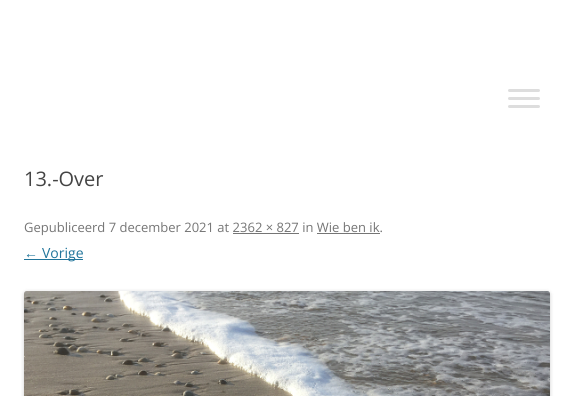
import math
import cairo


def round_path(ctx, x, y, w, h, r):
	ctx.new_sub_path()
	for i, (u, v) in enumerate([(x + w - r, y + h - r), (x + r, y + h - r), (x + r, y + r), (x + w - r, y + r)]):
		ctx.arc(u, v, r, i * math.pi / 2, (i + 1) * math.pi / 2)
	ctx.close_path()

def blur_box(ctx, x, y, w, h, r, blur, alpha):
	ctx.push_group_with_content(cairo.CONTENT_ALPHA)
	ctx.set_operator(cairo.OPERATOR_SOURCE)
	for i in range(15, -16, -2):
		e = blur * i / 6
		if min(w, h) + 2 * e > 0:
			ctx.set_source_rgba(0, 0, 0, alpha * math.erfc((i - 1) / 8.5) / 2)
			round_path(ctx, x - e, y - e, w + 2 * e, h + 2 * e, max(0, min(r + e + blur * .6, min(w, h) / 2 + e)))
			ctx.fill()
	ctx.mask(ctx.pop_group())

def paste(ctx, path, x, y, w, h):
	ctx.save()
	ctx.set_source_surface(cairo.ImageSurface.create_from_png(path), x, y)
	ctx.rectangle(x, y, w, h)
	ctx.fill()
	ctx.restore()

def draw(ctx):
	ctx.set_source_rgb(1, 1, 1)
	ctx.paint()
	ctx.set_source_rgb(0.867, 0.867, 0.867)
	round_path(ctx, 508, 89, 32, 3, 1.5)
	ctx.fill()
	round_path(ctx, 508, 97, 32, 3, 1.5)
	ctx.fill()
	round_path(ctx, 508, 105, 32, 3, 1.5)
	ctx.fill()
	ctx.select_font_face('Open Sans')
	ctx.set_font_size(20)
	ctx.set_source_rgb(0.267, 0.267, 0.267)
	ctx.move_to(24, 186)
	ctx.show_text('13.-Over')
	ctx.set_font_size(13)
	ctx.set_source_rgb(0.459, 0.459, 0.459)
	ctx.move_to(24, 232)
	ctx.show_text('Gepubliceerd 7 december 2021 at 2362 × 827 in Wie ben ik.')
	ctx.rectangle(233, 233, 66, 1)
	ctx.fill()
	ctx.rectangle(317, 233, 63, 1)
	ctx.fill()
	ctx.select_font_face('Liberation Sans')
	ctx.set_font_size(14)
	ctx.set_source_rgb(0.129, 0.459, 0.608)
	ctx.move_to(24, 258)
	ctx.show_text('←')
	ctx.rectangle(24, 259, 59, 1)
	ctx.fill()
	ctx.select_font_face('Open Sans')
	ctx.move_to(42, 258)
	ctx.show_text('Vorige')
	ctx.set_source_rgb(0, 0, 0)
	blur_box(ctx, 24, 292, 526, 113, 3, 2, 0.2)
	paste(ctx, 'media/1.png', 24, 291, 526, 105)


surface = cairo.ImageSurface(cairo.FORMAT_RGB24, 574, 396)
ctx = cairo.Context(surface)
options = cairo.FontOptions()
options.set_hint_metrics(cairo.HINT_METRICS_OFF)
options.set_hint_style(cairo.HINT_STYLE_NONE)
ctx.set_font_options(options)
ctx.set_miter_limit(4)
draw(ctx)
surface.write_to_png('image.png')
